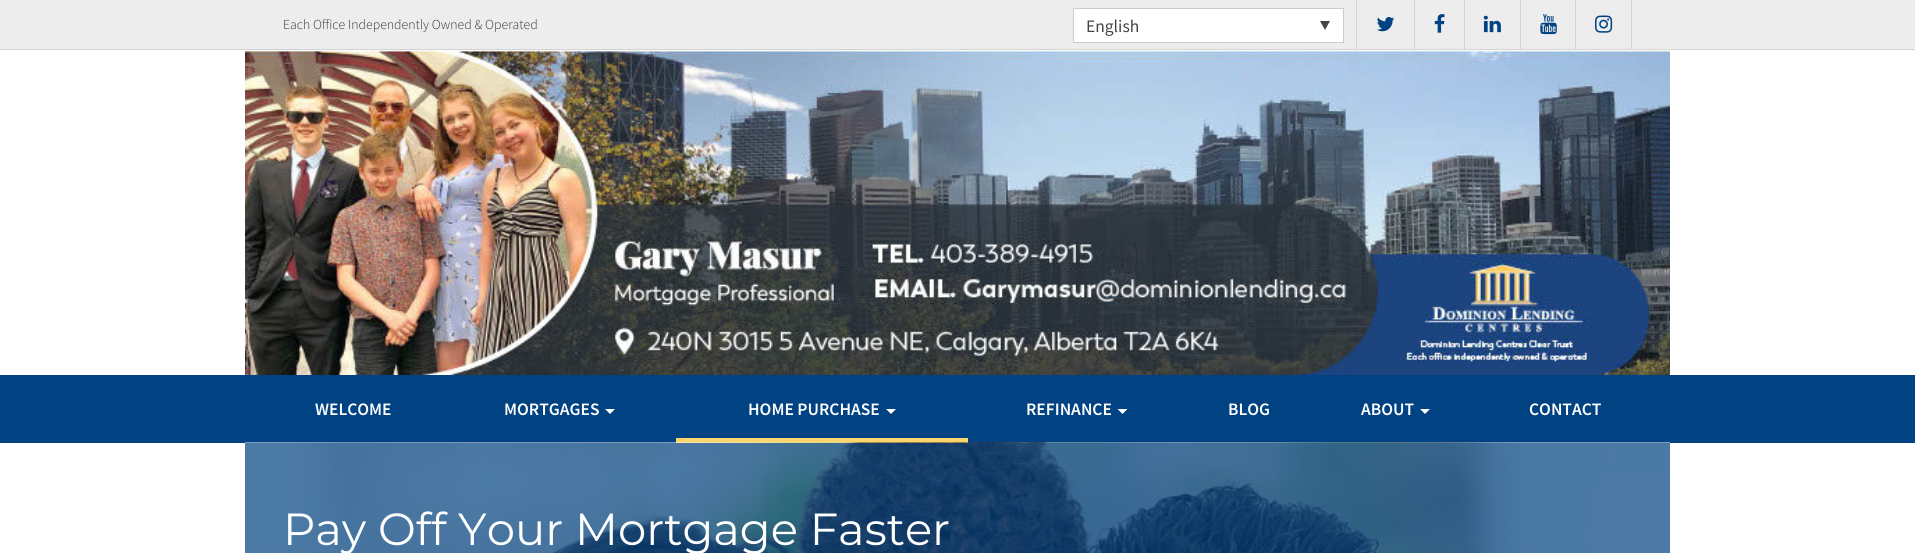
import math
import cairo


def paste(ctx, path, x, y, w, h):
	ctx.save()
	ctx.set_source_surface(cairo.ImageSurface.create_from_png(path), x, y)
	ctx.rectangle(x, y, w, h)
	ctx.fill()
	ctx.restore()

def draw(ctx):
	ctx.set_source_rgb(1, 1, 1)
	ctx.paint()
	ctx.set_source_rgb(0.929, 0.929, 0.929)
	ctx.rectangle(0, 0, 1915, 49)
	ctx.fill()
	ctx.set_source_rgb(0.827, 0.827, 0.827)
	ctx.rectangle(0, 49, 1915, 1)
	ctx.fill()
	ctx.select_font_face('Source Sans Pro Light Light')
	ctx.set_font_size(13.75)
	ctx.set_source_rgb(0.212, 0.212, 0.212)
	ctx.move_to(283, 29)
	ctx.show_text('Each Office Independently Owned & Operated')
	ctx.set_source_rgb(1, 1, 1)
	ctx.rectangle(1073.5, 8.5, 270, 34)
	ctx.fill_preserve()
	ctx.set_source_rgb(0.804, 0.804, 0.804)
	ctx.set_line_width(1)
	ctx.stroke()
	ctx.select_font_face('Source Sans Pro')
	ctx.set_font_size(17.5)
	ctx.set_source_rgb(0.267, 0.267, 0.267)
	ctx.move_to(1086, 32)
	ctx.show_text('English')
	ctx.new_path()
	ctx.move_to(1320, 21)
	ctx.line_to(1330, 21)
	ctx.line_to(1325, 30)
	ctx.close_path()
	ctx.fill()
	ctx.set_source_rgb(0.827, 0.827, 0.827)
	ctx.rectangle(1356, 0, 1, 49)
	ctx.fill()
	paste(ctx, 'media/1.png', 1377, 17, 18, 15)
	ctx.rectangle(1414, 0, 1, 49)
	ctx.fill()
	paste(ctx, 'media/2.png', 1434, 14, 11, 19)
	ctx.rectangle(1464, 0, 1, 49)
	ctx.fill()
	paste(ctx, 'media/3.png', 1483, 15, 18, 18)
	ctx.rectangle(1520, 0, 1, 49)
	ctx.fill()
	paste(ctx, 'media/4.png', 1540, 14, 17, 21)
	ctx.rectangle(1631, 0, 1, 49)
	ctx.fill()
	ctx.rectangle(1575, 0, 1, 49)
	ctx.fill()
	paste(ctx, 'media/5.png', 1595, 15, 18, 18)
	paste(ctx, 'media/6.png', 245, 50, 1425, 325)
	ctx.set_source_rgb(0, 0.259, 0.51)
	ctx.rectangle(0, 375, 1915, 68)
	ctx.fill()
	ctx.select_font_face('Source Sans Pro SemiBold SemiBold')
	ctx.set_source_rgb(1, 1, 1)
	ctx.move_to(315, 415)
	ctx.show_text('WELCOME')
	ctx.move_to(504, 415)
	ctx.show_text('MORTGAGES')
	ctx.new_path()
	ctx.move_to(605, 409)
	ctx.line_to(615, 409)
	ctx.line_to(610, 414)
	ctx.close_path()
	ctx.fill()
	ctx.move_to(748, 415)
	ctx.show_text('HOME PURCHASE')
	ctx.new_path()
	ctx.move_to(886, 409)
	ctx.line_to(896, 409)
	ctx.line_to(891, 414)
	ctx.close_path()
	ctx.fill()
	ctx.set_source_rgb(0.996, 0.831, 0.424)
	ctx.rectangle(676, 438, 292, 5)
	ctx.fill()
	ctx.set_source_rgb(1, 1, 1)
	ctx.move_to(1026, 415)
	ctx.show_text('REFINANCE')
	ctx.new_path()
	ctx.move_to(1117.5, 409)
	ctx.line_to(1127.5, 409)
	ctx.line_to(1122.5, 414)
	ctx.close_path()
	ctx.fill()
	ctx.move_to(1228, 415)
	ctx.show_text('BLOG')
	ctx.move_to(1361, 415)
	ctx.show_text('ABOUT')
	ctx.new_path()
	ctx.move_to(1420, 409)
	ctx.line_to(1430, 409)
	ctx.line_to(1425, 414)
	ctx.close_path()
	ctx.fill()
	ctx.move_to(1529, 415)
	ctx.show_text('CONTACT')
	paste(ctx, 'media/7.png', 245, 442, 1425, 111)
	ctx.select_font_face('Montserrat')
	ctx.set_font_size(45)
	ctx.move_to(283, 545)
	ctx.show_text('Pay Off Your Mortgage Faster')


surface = cairo.ImageSurface(cairo.FORMAT_RGB24, 1915, 553)
ctx = cairo.Context(surface)
options = cairo.FontOptions()
options.set_hint_metrics(cairo.HINT_METRICS_OFF)
options.set_hint_style(cairo.HINT_STYLE_NONE)
ctx.set_font_options(options)
ctx.set_miter_limit(4)
draw(ctx)
surface.write_to_png('image.png')
